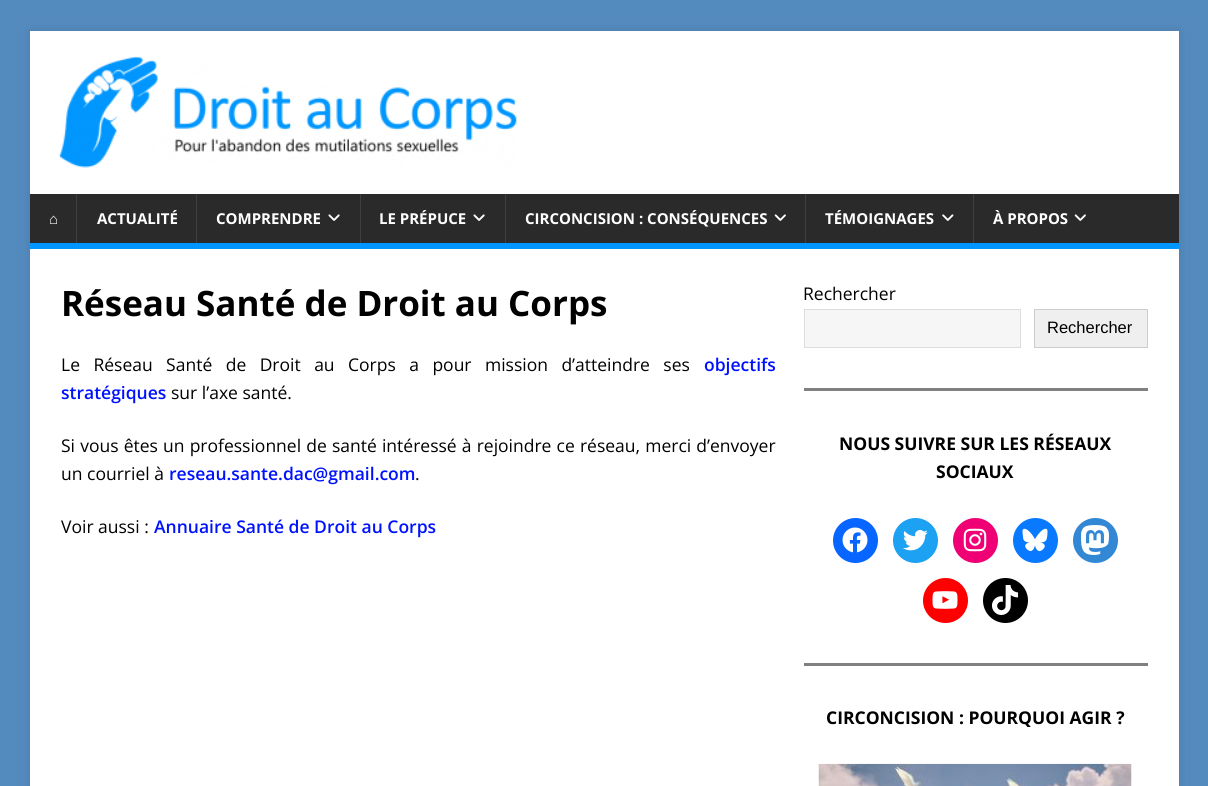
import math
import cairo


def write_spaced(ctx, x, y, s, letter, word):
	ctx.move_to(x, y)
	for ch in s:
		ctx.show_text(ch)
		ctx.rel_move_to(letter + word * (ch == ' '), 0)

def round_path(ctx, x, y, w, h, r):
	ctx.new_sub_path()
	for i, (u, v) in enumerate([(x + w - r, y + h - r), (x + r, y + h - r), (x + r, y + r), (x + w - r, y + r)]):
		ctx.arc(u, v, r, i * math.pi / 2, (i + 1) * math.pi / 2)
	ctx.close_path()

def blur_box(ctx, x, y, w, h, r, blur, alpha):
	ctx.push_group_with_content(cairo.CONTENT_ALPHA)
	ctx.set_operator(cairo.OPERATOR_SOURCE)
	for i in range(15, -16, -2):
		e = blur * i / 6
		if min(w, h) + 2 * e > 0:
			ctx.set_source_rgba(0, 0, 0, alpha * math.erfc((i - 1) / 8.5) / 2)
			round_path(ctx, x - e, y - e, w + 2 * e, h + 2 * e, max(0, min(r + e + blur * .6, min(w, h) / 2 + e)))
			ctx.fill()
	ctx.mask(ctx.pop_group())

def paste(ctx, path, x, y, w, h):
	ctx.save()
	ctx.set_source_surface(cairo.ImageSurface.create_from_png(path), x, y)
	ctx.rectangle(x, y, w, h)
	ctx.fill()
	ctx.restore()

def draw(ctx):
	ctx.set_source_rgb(0.329, 0.545, 0.749)
	ctx.paint()
	ctx.set_source_rgb(0.196, 0.196, 0.196)
	blur_box(ctx, 30, 31, 1149, 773, 0, 6, 0.17)
	ctx.set_source_rgb(1, 1, 1)
	ctx.rectangle(30, 31, 1149, 163)
	ctx.fill()
	paste(ctx, 'media/1.png', 58, 56, 459, 112)
	ctx.set_source_rgb(0.165, 0.165, 0.165)
	ctx.rectangle(30, 194, 1149, 49)
	ctx.fill()
	ctx.set_source_rgb(0, 0.588, 1)
	ctx.rectangle(30, 243, 1149, 6)
	ctx.fill()
	ctx.select_font_face('Liberation Sans', cairo.FONT_SLANT_NORMAL, cairo.FONT_WEIGHT_BOLD)
	ctx.set_font_size(15)
	ctx.set_source_rgb(1, 1, 1)
	ctx.move_to(49, 224)
	ctx.show_text('⌂')
	ctx.set_source_rgb(0.247, 0.247, 0.247)
	ctx.rectangle(76, 194, 1, 49)
	ctx.fill()
	ctx.select_font_face('Open Sans', cairo.FONT_SLANT_NORMAL, cairo.FONT_WEIGHT_BOLD)
	ctx.set_source_rgb(1, 1, 1)
	ctx.move_to(97, 224)
	ctx.show_text('ACTUALITÉ')
	ctx.set_source_rgb(0.247, 0.247, 0.247)
	ctx.rectangle(196, 194, 1, 49)
	ctx.fill()
	ctx.set_source_rgb(1, 1, 1)
	ctx.move_to(216, 224)
	ctx.show_text('COMPRENDRE')
	paste(ctx, 'media/2.png', 328, 214, 12, 7)
	ctx.set_source_rgb(0.247, 0.247, 0.247)
	ctx.rectangle(360, 194, 1, 49)
	ctx.fill()
	ctx.set_source_rgb(1, 1, 1)
	ctx.move_to(379, 224)
	ctx.show_text('LE PRÉPUCE')
	paste(ctx, 'media/2.png', 473, 214, 12, 7)
	ctx.set_source_rgb(0.247, 0.247, 0.247)
	ctx.rectangle(505, 194, 1, 49)
	ctx.fill()
	ctx.set_source_rgb(1, 1, 1)
	ctx.move_to(525, 224)
	ctx.show_text('CIRCONCISION : CONSÉQUENCES')
	paste(ctx, 'media/3.png', 774, 214, 12, 7)
	ctx.set_source_rgb(0.247, 0.247, 0.247)
	ctx.rectangle(805, 194, 1, 49)
	ctx.fill()
	ctx.set_source_rgb(1, 1, 1)
	ctx.move_to(825, 224)
	ctx.show_text('TÉMOIGNAGES')
	paste(ctx, 'media/4.png', 942, 214, 12, 7)
	ctx.set_source_rgb(0.247, 0.247, 0.247)
	ctx.rectangle(973, 194, 1, 49)
	ctx.fill()
	ctx.set_source_rgb(1, 1, 1)
	ctx.move_to(993, 224)
	ctx.show_text('À PROPOS')
	paste(ctx, 'media/3.png', 1074, 214, 12, 7)
	ctx.rectangle(30, 249, 1149, 537)
	ctx.fill()
	ctx.set_font_size(35)
	ctx.set_source_rgb(0, 0, 0)
	ctx.move_to(61, 316)
	ctx.show_text('Réseau Santé de Droit au Corps')
	ctx.select_font_face('Open Sans')
	ctx.set_font_size(17.5)
	write_spaced(ctx, 61, 371, 'Le Réseau Santé de Droit au Corps a pour mission d’atteindre ses', 0, 8.9)
	ctx.select_font_face('Open Sans SemiBold')
	ctx.set_source_rgb(0, 0.067, 1)
	ctx.move_to(704, 371)
	ctx.show_text('objectifs')
	ctx.move_to(61, 399)
	ctx.show_text('stratégiques')
	ctx.select_font_face('Open Sans')
	ctx.set_source_rgb(0, 0, 0)
	ctx.move_to(171, 399)
	ctx.show_text('sur l’axe santé.')
	write_spaced(ctx, 61, 452, 'Si vous êtes un professionnel de santé intéressé à rejoindre ce réseau, merci d’envoyer', 0, 0.6)
	ctx.move_to(61, 480)
	ctx.show_text('un courriel à')
	ctx.select_font_face('Open Sans SemiBold')
	ctx.set_source_rgb(0, 0.067, 1)
	ctx.move_to(169, 480)
	ctx.show_text('reseau.sante.dac@gmail.com')
	ctx.select_font_face('Open Sans')
	ctx.set_source_rgb(0, 0, 0)
	ctx.move_to(415, 480)
	ctx.show_text('.')
	ctx.move_to(61, 533)
	ctx.show_text('Voir aussi :')
	ctx.select_font_face('Open Sans SemiBold')
	ctx.set_source_rgb(0, 0.067, 1)
	ctx.move_to(154, 533)
	ctx.show_text('Annuaire Santé de Droit au Corps')
	ctx.select_font_face('Open Sans')
	ctx.set_source_rgb(0, 0, 0)
	ctx.move_to(803, 300)
	ctx.show_text('Rechercher')
	ctx.set_source_rgb(0.961, 0.961, 0.961)
	ctx.rectangle(804.5, 309.5, 216, 38)
	ctx.fill_preserve()
	ctx.set_source_rgb(0.867, 0.867, 0.867)
	ctx.set_line_width(1)
	ctx.stroke()
	ctx.set_source_rgb(0.937, 0.937, 0.937)
	ctx.rectangle(1034.5, 309.5, 113, 38)
	ctx.fill_preserve()
	ctx.set_source_rgb(0.8, 0.8, 0.8)
	ctx.stroke()
	ctx.select_font_face('Liberation Sans')
	ctx.set_font_size(16.5)
	ctx.set_source_rgb(0, 0, 0)
	ctx.move_to(1047, 333)
	ctx.show_text('Rechercher')
	ctx.set_source_rgb(0.502, 0.502, 0.502)
	ctx.rectangle(804, 388, 344, 3)
	ctx.fill()
	ctx.select_font_face('Open Sans', cairo.FONT_SLANT_NORMAL, cairo.FONT_WEIGHT_BOLD)
	ctx.set_font_size(17.5)
	ctx.set_source_rgb(0, 0, 0)
	ctx.move_to(839, 450)
	ctx.show_text('NOUS SUIVRE SUR LES RÉSEAUX')
	ctx.move_to(936, 478)
	ctx.show_text('SOCIAUX')
	ctx.set_source_rgb(0.031, 0.4, 1)
	ctx.new_path()
	ctx.arc(855.5, 540.5, 22.5, 0, 2 * math.pi)
	ctx.fill()
	paste(ctx, 'media/5.png', 842, 527, 26, 26)
	ctx.set_source_rgb(0.114, 0.631, 0.949)
	ctx.arc(915.5, 540.5, 22.5, 0, 2 * math.pi)
	ctx.fill()
	paste(ctx, 'media/6.png', 903, 530, 25, 21)
	ctx.set_source_rgb(0.941, 0, 0.459)
	ctx.arc(975.5, 540.5, 22.5, 0, 2 * math.pi)
	ctx.fill()
	paste(ctx, 'media/7.png', 963, 528, 24, 24)
	ctx.set_source_rgb(0.039, 0.478, 1)
	ctx.arc(1035.5, 540.5, 22.5, 0, 2 * math.pi)
	ctx.fill()
	paste(ctx, 'media/8.png', 1022, 528, 26, 24)
	ctx.set_source_rgb(0.196, 0.533, 0.831)
	ctx.arc(1095.5, 540.5, 22.5, 0, 2 * math.pi)
	ctx.fill()
	paste(ctx, 'media/9.png', 1081, 525, 28, 30)
	ctx.set_source_rgb(1, 0, 0)
	ctx.arc(945.5, 600.5, 22.5, 0, 2 * math.pi)
	ctx.fill()
	paste(ctx, 'media/10.png', 932, 591, 26, 18)
	ctx.set_source_rgb(0, 0, 0)
	ctx.arc(1005.5, 600.5, 22.5, 0, 2 * math.pi)
	ctx.fill()
	paste(ctx, 'media/11.png', 992, 585, 27, 30)
	ctx.set_source_rgb(0.502, 0.502, 0.502)
	ctx.rectangle(804, 663, 344, 3)
	ctx.fill()
	ctx.set_source_rgb(0, 0, 0)
	ctx.move_to(826, 724)
	ctx.show_text('CIRCONCISION : POURQUOI AGIR ?')
	paste(ctx, 'media/12.png', 818, 763, 314, 23)


surface = cairo.ImageSurface(cairo.FORMAT_RGB24, 1208, 786)
ctx = cairo.Context(surface)
options = cairo.FontOptions()
options.set_hint_metrics(cairo.HINT_METRICS_OFF)
options.set_hint_style(cairo.HINT_STYLE_NONE)
ctx.set_font_options(options)
ctx.set_miter_limit(4)
draw(ctx)
surface.write_to_png('image.png')
